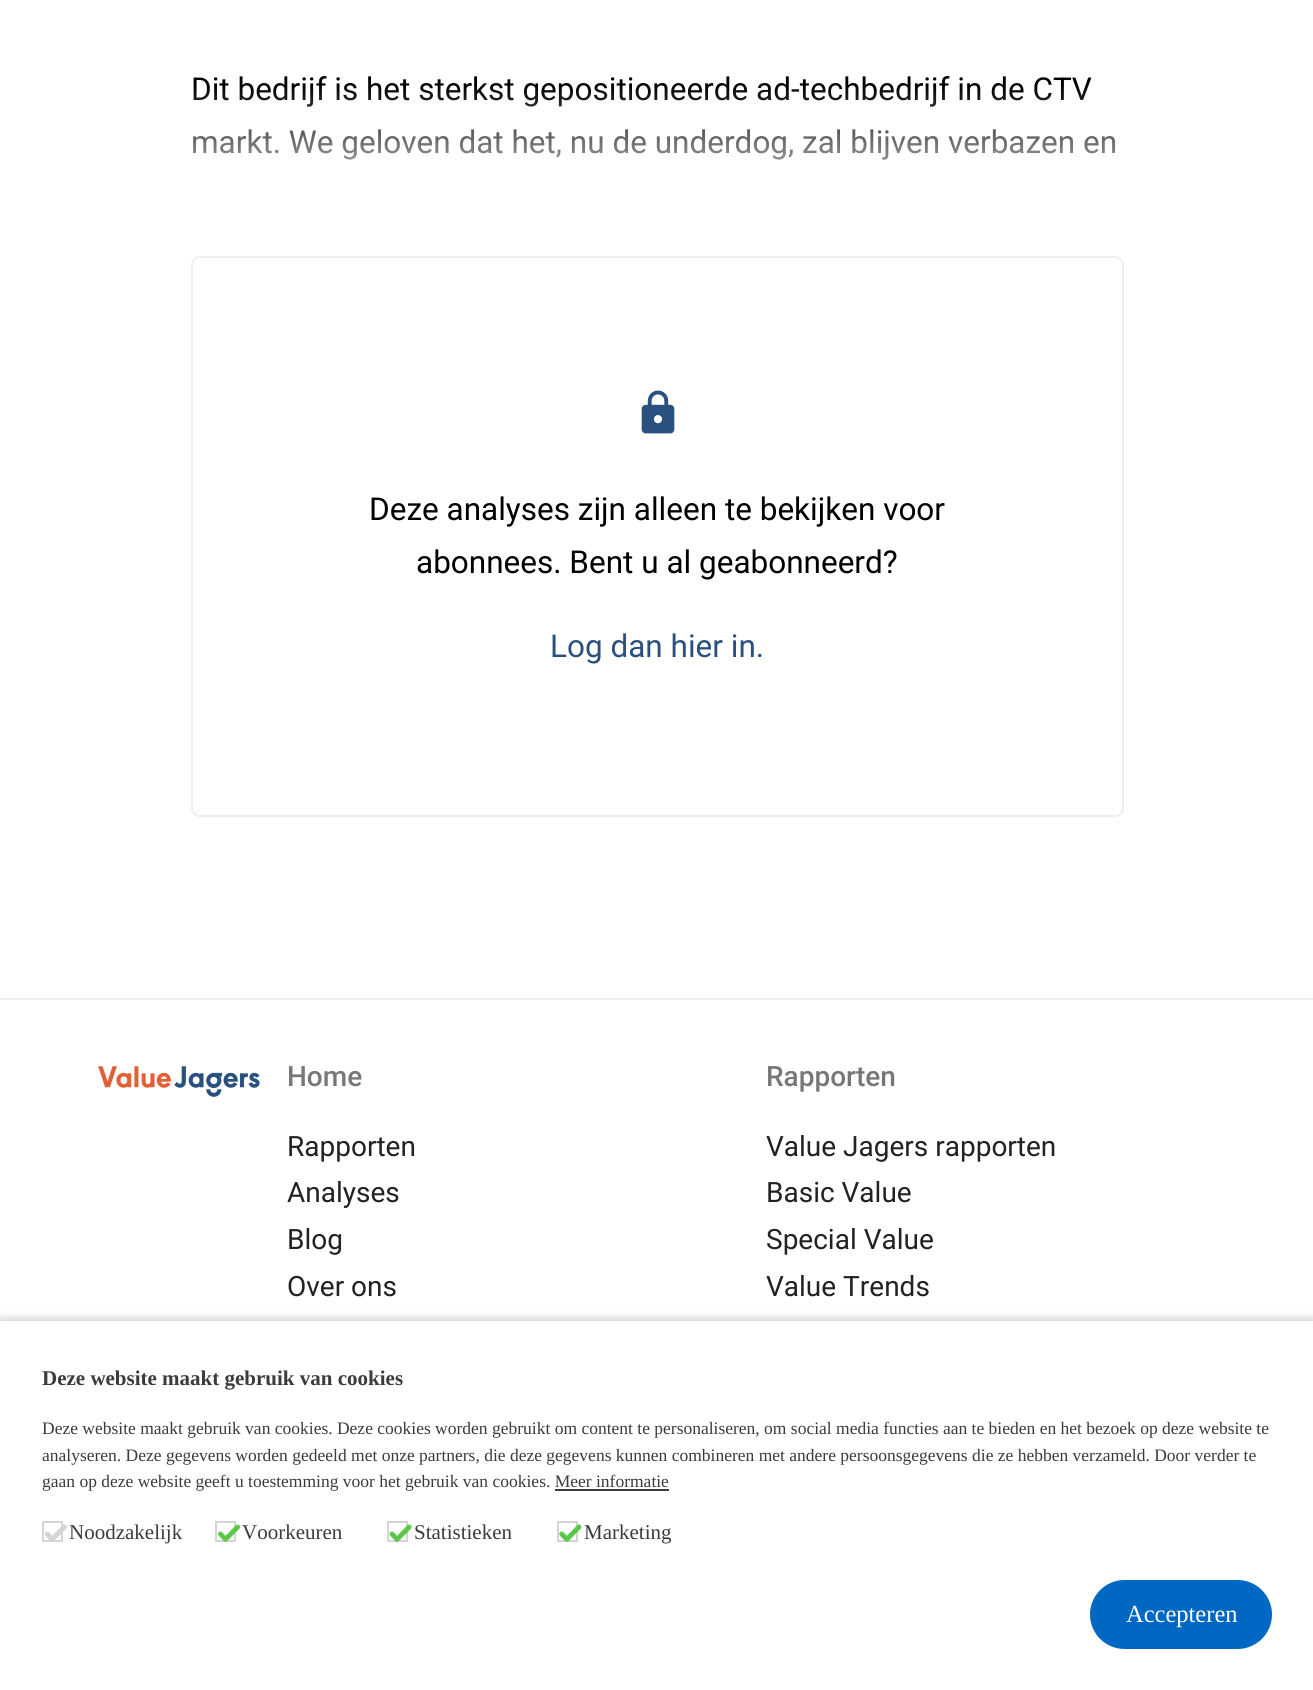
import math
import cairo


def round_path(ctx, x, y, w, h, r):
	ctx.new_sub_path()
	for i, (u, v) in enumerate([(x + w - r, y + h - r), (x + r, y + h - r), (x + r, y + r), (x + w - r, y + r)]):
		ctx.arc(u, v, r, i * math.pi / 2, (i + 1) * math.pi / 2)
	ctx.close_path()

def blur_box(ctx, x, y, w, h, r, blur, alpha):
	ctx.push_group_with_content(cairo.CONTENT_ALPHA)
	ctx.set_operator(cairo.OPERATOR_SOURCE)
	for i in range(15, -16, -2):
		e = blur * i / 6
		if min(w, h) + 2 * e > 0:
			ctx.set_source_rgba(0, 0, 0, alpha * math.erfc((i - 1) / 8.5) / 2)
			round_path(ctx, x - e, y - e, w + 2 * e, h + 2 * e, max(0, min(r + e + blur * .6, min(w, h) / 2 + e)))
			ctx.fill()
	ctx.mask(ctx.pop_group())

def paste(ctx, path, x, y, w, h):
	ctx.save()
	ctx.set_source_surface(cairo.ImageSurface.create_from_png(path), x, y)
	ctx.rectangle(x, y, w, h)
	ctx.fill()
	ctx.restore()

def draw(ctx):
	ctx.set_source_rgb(1, 1, 1)
	ctx.paint()
	ctx.select_font_face('Roboto')
	ctx.set_font_size(31.5)
	ctx.set_source_rgb(0, 0, 0)
	ctx.move_to(191, 100)
	ctx.show_text('Dit bedrijf is het sterkst gepositioneerde ad-techbedrijf in de CTV')
	ctx.move_to(191, 153)
	ctx.show_text('markt. We geloven dat het, nu de underdog, zal blijven verbazen en')
	round_path(ctx, 192, 257, 931, 559, 8)
	ctx.set_source_rgb(0.922, 0.937, 0.945)
	ctx.stroke()
	gradient = cairo.LinearGradient(657, 252, 657, 84)
	gradient.add_color_stop_rgba(0.2, 1, 1, 1, 1)
	gradient.add_color_stop_rgba(1, 1, 1, 1, 0)
	ctx.set_source(gradient)
	ctx.rectangle(193, 87, 923, 73)
	ctx.fill()
	paste(ctx, 'media/1.png', 641, 390, 34, 44)
	ctx.set_source_rgb(0, 0, 0)
	ctx.move_to(369, 520)
	ctx.show_text('Deze analyses zijn alleen te bekijken voor')
	ctx.move_to(416, 573)
	ctx.show_text('abonnees. Bent u al geabonneerd?')
	ctx.set_source_rgb(0.165, 0.314, 0.502)
	ctx.move_to(550, 657)
	ctx.show_text('Log dan hier in.')
	ctx.set_source_rgb(0.922, 0.937, 0.945)
	ctx.rectangle(0, 998, 1313, 2)
	ctx.fill()
	paste(ctx, 'media/2.png', 98, 1066, 162, 31)
	ctx.select_font_face('Roboto Medium')
	ctx.set_font_size(28)
	ctx.set_source_rgb(0.467, 0.467, 0.467)
	ctx.move_to(287, 1086)
	ctx.show_text('Home')
	ctx.select_font_face('Roboto')
	ctx.set_source_rgb(0.133, 0.133, 0.133)
	for x, y, s in [
		(287, 1156, 'Rapporten'),
		(287, 1202, 'Analyses'),
		(287, 1249, 'Blog'),
		(287, 1296, 'Over ons'),
	]:
		ctx.move_to(x, y)
		ctx.show_text(s)
	ctx.select_font_face('Roboto Medium')
	ctx.set_source_rgb(0.467, 0.467, 0.467)
	ctx.move_to(766, 1086)
	ctx.show_text('Rapporten')
	ctx.select_font_face('Roboto')
	ctx.set_source_rgb(0.133, 0.133, 0.133)
	for x, y, s in [
		(766, 1156, 'Value Jagers rapporten'),
		(766, 1202, 'Basic Value'),
		(766, 1249, 'Special Value'),
		(766, 1296, 'Value Trends'),
	]:
		ctx.move_to(x, y)
		ctx.show_text(s)
	ctx.set_source_rgb(0.831, 0.831, 0.831)
	blur_box(ctx, 0, 1318, 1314, 369, 0, 3.5, 1)
	ctx.set_source_rgb(1, 1, 1)
	ctx.rectangle(0, 1321, 1313, 369)
	ctx.fill()
	ctx.select_font_face('Liberation Serif', cairo.FONT_SLANT_NORMAL, cairo.FONT_WEIGHT_BOLD)
	ctx.set_font_size(21)
	ctx.set_source_rgb(0.231, 0.231, 0.231)
	ctx.move_to(42, 1385)
	ctx.show_text('Deze website maakt gebruik van cookies')
	ctx.select_font_face('Liberation Serif')
	ctx.set_font_size(17.5)
	for x, y, s in [
		(42, 1434, 'Deze website maakt gebruik van cookies. Deze cookies worden gebruikt om content te personaliseren, om social media functies aan te bieden en het bezoek op deze website te'),
		(42, 1461, 'analyseren. Deze gegevens worden gedeeld met onze partners, die deze gegevens kunnen combineren met andere persoonsgegevens die ze hebben verzameld. Door verder te'),
		(42, 1487, 'gaan op deze website geeft u toestemming voor het gebruik van cookies. Meer informatie'),
	]:
		ctx.move_to(x, y)
		ctx.show_text(s)
	ctx.rectangle(555, 1489, 114, 2)
	ctx.fill()
	ctx.rectangle(43, 1522, 19, 19)
	ctx.set_source_rgb(0.831, 0.831, 0.831)
	ctx.stroke()
	paste(ctx, 'media/3.png', 44, 1524, 23, 19)
	ctx.set_font_size(21)
	ctx.set_source_rgb(0.231, 0.231, 0.231)
	ctx.move_to(69, 1539)
	ctx.show_text('Noodzakelijk')
	ctx.rectangle(216, 1522, 19, 19)
	ctx.set_source_rgb(0.831, 0.831, 0.831)
	ctx.stroke()
	paste(ctx, 'media/4.png', 217, 1524, 24, 19)
	ctx.set_source_rgb(0.231, 0.231, 0.231)
	ctx.move_to(242, 1539)
	ctx.show_text('Voorkeuren')
	ctx.rectangle(388, 1522, 19, 19)
	ctx.set_source_rgb(0.831, 0.831, 0.831)
	ctx.stroke()
	paste(ctx, 'media/5.png', 389, 1524, 23, 19)
	ctx.set_source_rgb(0.231, 0.231, 0.231)
	ctx.move_to(414, 1539)
	ctx.show_text('Statistieken')
	ctx.rectangle(558, 1522, 19, 19)
	ctx.set_source_rgb(0.831, 0.831, 0.831)
	ctx.stroke()
	paste(ctx, 'media/6.png', 559, 1524, 23, 19)
	ctx.set_source_rgb(0.231, 0.231, 0.231)
	ctx.move_to(584, 1539)
	ctx.show_text('Marketing')
	ctx.set_source_rgb(0, 0.408, 0.765)
	round_path(ctx, 1090, 1580, 182, 69, 34.5)
	ctx.fill()
	ctx.set_font_size(24.5)
	ctx.set_source_rgb(1, 1, 1)
	ctx.move_to(1126, 1622)
	ctx.show_text('Accepteren')


surface = cairo.ImageSurface(cairo.FORMAT_RGB24, 1313, 1690)
ctx = cairo.Context(surface)
options = cairo.FontOptions()
options.set_hint_metrics(cairo.HINT_METRICS_OFF)
options.set_hint_style(cairo.HINT_STYLE_NONE)
ctx.set_font_options(options)
ctx.set_miter_limit(4)
draw(ctx)
surface.write_to_png('image.png')
